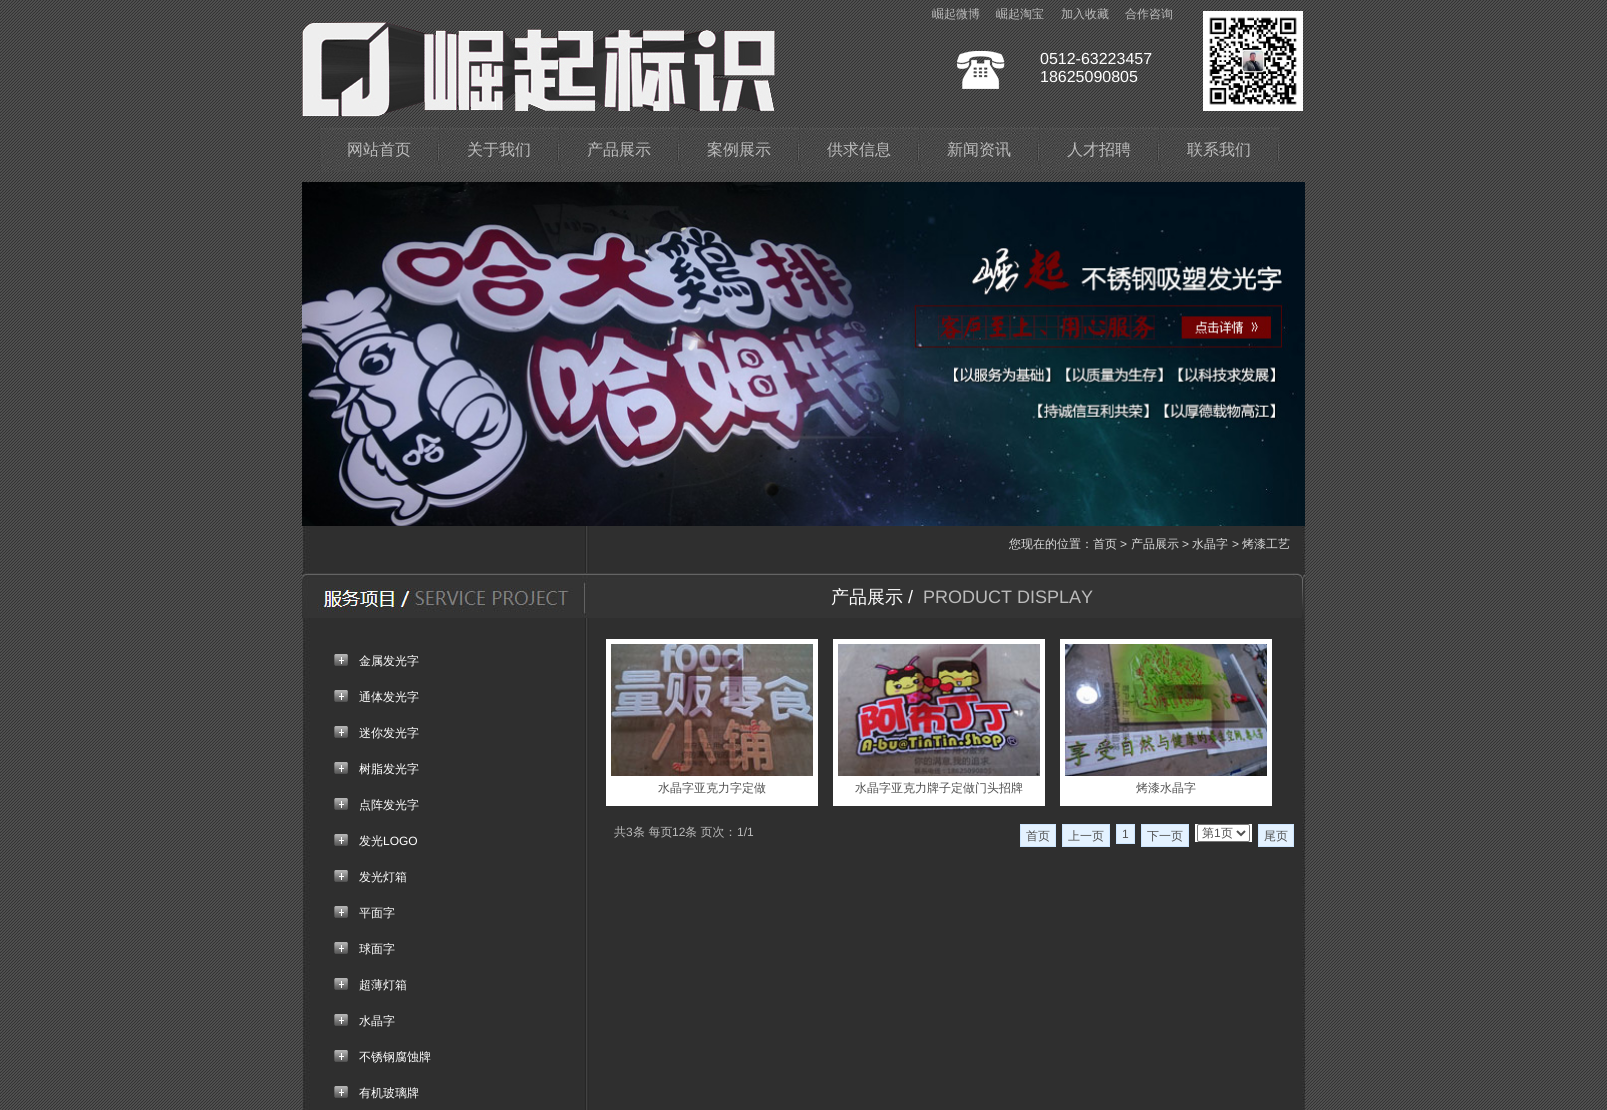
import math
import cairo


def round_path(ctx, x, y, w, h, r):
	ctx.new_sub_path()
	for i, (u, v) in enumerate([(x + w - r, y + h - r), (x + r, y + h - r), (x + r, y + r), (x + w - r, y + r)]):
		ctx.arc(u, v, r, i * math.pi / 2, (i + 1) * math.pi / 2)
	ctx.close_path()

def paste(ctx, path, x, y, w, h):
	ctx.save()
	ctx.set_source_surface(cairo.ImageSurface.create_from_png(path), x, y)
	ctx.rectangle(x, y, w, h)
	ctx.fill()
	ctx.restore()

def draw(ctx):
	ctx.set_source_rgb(1, 1, 1)
	ctx.paint()
	paste(ctx, 'media/1.png', 0, 0, 1607, 1110)
	paste(ctx, 'media/2.png', 302, 11, 476, 118)
	ctx.select_font_face('WenQuanYi Zen Hei Medium')
	ctx.set_font_size(12)
	ctx.set_source_rgb(0.733, 0.733, 0.733)
	for x, y, s in [
		(932, 18, '崛起微博'),
		(996, 18, '崛起淘宝'),
		(1061, 18, '加入收藏'),
		(1125, 18, '合作咨询'),
	]:
		ctx.move_to(x, y)
		ctx.show_text(s)
	paste(ctx, 'media/3.png', 1203, 11, 100, 100)
	paste(ctx, 'media/4.png', 957, 51, 48, 38)
	ctx.select_font_face('Liberation Sans')
	ctx.set_font_size(16)
	ctx.set_source_rgb(1, 1, 1)
	ctx.move_to(1040, 64)
	ctx.show_text('0512-63223457')
	ctx.move_to(1040, 82)
	ctx.show_text('18625090805')
	paste(ctx, 'media/5.png', 319, 127, 120, 45)
	ctx.select_font_face('WenQuanYi Zen Hei Medium')
	ctx.set_source_rgb(0.733, 0.733, 0.733)
	ctx.move_to(347, 155)
	ctx.show_text('网站首页')
	paste(ctx, 'media/5.png', 439, 127, 120, 45)
	ctx.move_to(467, 155)
	ctx.show_text('关于我们')
	paste(ctx, 'media/5.png', 559, 127, 120, 45)
	ctx.move_to(587, 155)
	ctx.show_text('产品展示')
	paste(ctx, 'media/5.png', 679, 127, 120, 45)
	ctx.move_to(707, 155)
	ctx.show_text('案例展示')
	paste(ctx, 'media/5.png', 799, 127, 120, 45)
	ctx.move_to(827, 155)
	ctx.show_text('供求信息')
	paste(ctx, 'media/5.png', 919, 127, 120, 45)
	ctx.move_to(947, 155)
	ctx.show_text('新闻资讯')
	paste(ctx, 'media/5.png', 1039, 127, 120, 45)
	ctx.move_to(1067, 155)
	ctx.show_text('人才招聘')
	paste(ctx, 'media/5.png', 1159, 127, 120, 45)
	ctx.move_to(1187, 155)
	ctx.show_text('联系我们')
	paste(ctx, 'media/6.png', 302, 182, 1003, 344)
	paste(ctx, 'media/7.png', 302, 526, 1003, 584)
	ctx.set_font_size(12)
	ctx.set_source_rgb(0.859, 0.859, 0.859)
	ctx.move_to(1009, 548)
	ctx.show_text('您现在的位置：首页')
	ctx.select_font_face('Liberation Sans')
	ctx.move_to(1120, 548)
	ctx.show_text('>')
	ctx.select_font_face('WenQuanYi Zen Hei Medium')
	ctx.move_to(1131, 548)
	ctx.show_text('产品展示')
	ctx.select_font_face('Liberation Sans')
	ctx.move_to(1182, 548)
	ctx.show_text('>')
	ctx.select_font_face('WenQuanYi Zen Hei Medium')
	ctx.move_to(1192, 548)
	ctx.show_text('水晶字')
	ctx.select_font_face('Liberation Sans')
	ctx.move_to(1232, 548)
	ctx.show_text('>')
	ctx.select_font_face('WenQuanYi Zen Hei Medium')
	ctx.move_to(1242, 548)
	ctx.show_text('烤漆工艺')
	paste(ctx, 'media/8.png', 302, 573, 1003, 45)
	ctx.set_font_size(18)
	ctx.set_source_rgb(1, 1, 1)
	ctx.move_to(831, 603)
	ctx.show_text('产品展示')
	ctx.select_font_face('Liberation Sans')
	ctx.move_to(908, 603)
	ctx.show_text('/')
	ctx.set_source_rgb(0.733, 0.733, 0.733)
	ctx.move_to(923, 603)
	ctx.show_text('PRODUCT DISPLAY')
	paste(ctx, 'media/9.png', 334, 654, 14, 12)
	ctx.select_font_face('WenQuanYi Zen Hei Medium')
	ctx.set_font_size(12)
	ctx.set_source_rgb(1, 1, 1)
	ctx.move_to(359, 665)
	ctx.show_text('金属发光字')
	paste(ctx, 'media/9.png', 334, 690, 14, 12)
	ctx.move_to(359, 701)
	ctx.show_text('通体发光字')
	paste(ctx, 'media/9.png', 334, 726, 14, 12)
	ctx.move_to(359, 737)
	ctx.show_text('迷你发光字')
	paste(ctx, 'media/9.png', 334, 762, 14, 12)
	ctx.move_to(359, 773)
	ctx.show_text('树脂发光字')
	paste(ctx, 'media/9.png', 334, 798, 14, 12)
	ctx.move_to(359, 809)
	ctx.show_text('点阵发光字')
	paste(ctx, 'media/9.png', 334, 834, 14, 12)
	ctx.move_to(359, 845)
	ctx.show_text('发光')
	ctx.select_font_face('Liberation Sans')
	ctx.move_to(383, 845)
	ctx.show_text('LOGO')
	paste(ctx, 'media/9.png', 334, 870, 14, 12)
	ctx.select_font_face('WenQuanYi Zen Hei Medium')
	ctx.move_to(359, 881)
	ctx.show_text('发光灯箱')
	paste(ctx, 'media/9.png', 334, 906, 14, 12)
	ctx.move_to(359, 917)
	ctx.show_text('平面字')
	paste(ctx, 'media/9.png', 334, 942, 14, 12)
	ctx.move_to(359, 953)
	ctx.show_text('球面字')
	paste(ctx, 'media/9.png', 334, 978, 14, 12)
	ctx.move_to(359, 989)
	ctx.show_text('超薄灯箱')
	paste(ctx, 'media/9.png', 334, 1014, 14, 12)
	ctx.move_to(359, 1025)
	ctx.show_text('水晶字')
	paste(ctx, 'media/9.png', 334, 1050, 14, 12)
	ctx.move_to(359, 1061)
	ctx.show_text('不锈钢腐蚀牌')
	paste(ctx, 'media/9.png', 334, 1086, 14, 12)
	ctx.move_to(359, 1097)
	ctx.show_text('有机玻璃牌')
	ctx.rectangle(606, 639, 212, 167)
	ctx.fill()
	paste(ctx, 'media/10.png', 611, 644, 202, 132)
	ctx.set_source_rgb(0.314, 0.314, 0.314)
	ctx.move_to(658, 792)
	ctx.show_text('水晶字亚克力字定做')
	ctx.set_source_rgb(1, 1, 1)
	ctx.rectangle(833, 639, 212, 167)
	ctx.fill()
	paste(ctx, 'media/11.png', 838, 644, 202, 132)
	ctx.set_source_rgb(0.314, 0.314, 0.314)
	ctx.move_to(855, 792)
	ctx.show_text('水晶字亚克力牌子定做门头招牌')
	ctx.set_source_rgb(1, 1, 1)
	ctx.rectangle(1060, 639, 212, 167)
	ctx.fill()
	paste(ctx, 'media/12.png', 1065, 644, 202, 132)
	ctx.set_source_rgb(0.314, 0.314, 0.314)
	ctx.move_to(1136, 792)
	ctx.show_text('烤漆水晶字')
	ctx.set_source_rgb(0.733, 0.733, 0.733)
	ctx.move_to(614, 836)
	ctx.show_text('共')
	ctx.select_font_face('Liberation Sans')
	ctx.move_to(626, 836)
	ctx.show_text('3')
	ctx.select_font_face('WenQuanYi Zen Hei Medium')
	ctx.move_to(633, 836)
	ctx.show_text('条 每页')
	ctx.select_font_face('Liberation Sans')
	ctx.move_to(672, 836)
	ctx.show_text('12')
	ctx.select_font_face('WenQuanYi Zen Hei Medium')
	ctx.move_to(685, 836)
	ctx.show_text('条 页次：')
	ctx.select_font_face('Liberation Sans')
	ctx.move_to(737, 836)
	ctx.show_text('1/1')
	ctx.set_source_rgb(0.894, 0.949, 1)
	ctx.rectangle(1020.5, 824.5, 35, 22)
	ctx.fill_preserve()
	ctx.set_source_rgb(0.804, 0.902, 1)
	ctx.set_line_width(1)
	ctx.stroke()
	ctx.select_font_face('WenQuanYi Zen Hei Medium')
	ctx.set_source_rgb(0.314, 0.314, 0.314)
	ctx.move_to(1026, 840)
	ctx.show_text('首页')
	ctx.set_source_rgb(0.894, 0.949, 1)
	ctx.rectangle(1062.5, 824.5, 47, 22)
	ctx.fill_preserve()
	ctx.set_source_rgb(0.804, 0.902, 1)
	ctx.stroke()
	ctx.set_source_rgb(0.314, 0.314, 0.314)
	ctx.move_to(1068, 840)
	ctx.show_text('上一页')
	ctx.set_source_rgb(0.894, 0.949, 1)
	ctx.rectangle(1116.5, 824.5, 18, 19)
	ctx.fill_preserve()
	ctx.set_source_rgb(0.804, 0.902, 1)
	ctx.stroke()
	ctx.select_font_face('Liberation Sans')
	ctx.set_source_rgb(0.314, 0.314, 0.314)
	ctx.move_to(1122, 838)
	ctx.show_text('1')
	ctx.set_source_rgb(0.894, 0.949, 1)
	ctx.rectangle(1141.5, 824.5, 47, 22)
	ctx.fill_preserve()
	ctx.set_source_rgb(0.804, 0.902, 1)
	ctx.stroke()
	ctx.select_font_face('WenQuanYi Zen Hei Medium')
	ctx.set_source_rgb(0.314, 0.314, 0.314)
	ctx.move_to(1147, 840)
	ctx.show_text('下一页')
	ctx.set_source_rgb(1, 1, 1)
	ctx.rectangle(1195, 824, 57, 18)
	ctx.fill()
	round_path(ctx, 1197.5, 824.5, 52, 17, 1.5)
	ctx.set_source_rgb(0.463, 0.463, 0.463)
	ctx.stroke()
	ctx.new_path()
	ctx.move_to(1237, 831)
	ctx.line_to(1241, 835)
	ctx.line_to(1245, 831)
	ctx.set_source_rgb(0.314, 0.314, 0.314)
	ctx.set_line_width(2)
	ctx.stroke()
	ctx.move_to(1202, 837)
	ctx.show_text('第')
	ctx.select_font_face('Liberation Sans')
	ctx.move_to(1214, 837)
	ctx.show_text('1')
	ctx.select_font_face('WenQuanYi Zen Hei Medium')
	ctx.move_to(1221, 837)
	ctx.show_text('页')
	ctx.set_source_rgb(0.894, 0.949, 1)
	ctx.rectangle(1258.5, 824.5, 35, 22)
	ctx.fill_preserve()
	ctx.set_source_rgb(0.804, 0.902, 1)
	ctx.set_line_width(1)
	ctx.stroke()
	ctx.set_source_rgb(0.314, 0.314, 0.314)
	ctx.move_to(1264, 840)
	ctx.show_text('尾页')


surface = cairo.ImageSurface(cairo.FORMAT_RGB24, 1607, 1110)
ctx = cairo.Context(surface)
options = cairo.FontOptions()
options.set_hint_metrics(cairo.HINT_METRICS_OFF)
options.set_hint_style(cairo.HINT_STYLE_NONE)
ctx.set_font_options(options)
ctx.set_miter_limit(4)
draw(ctx)
surface.write_to_png('image.png')
